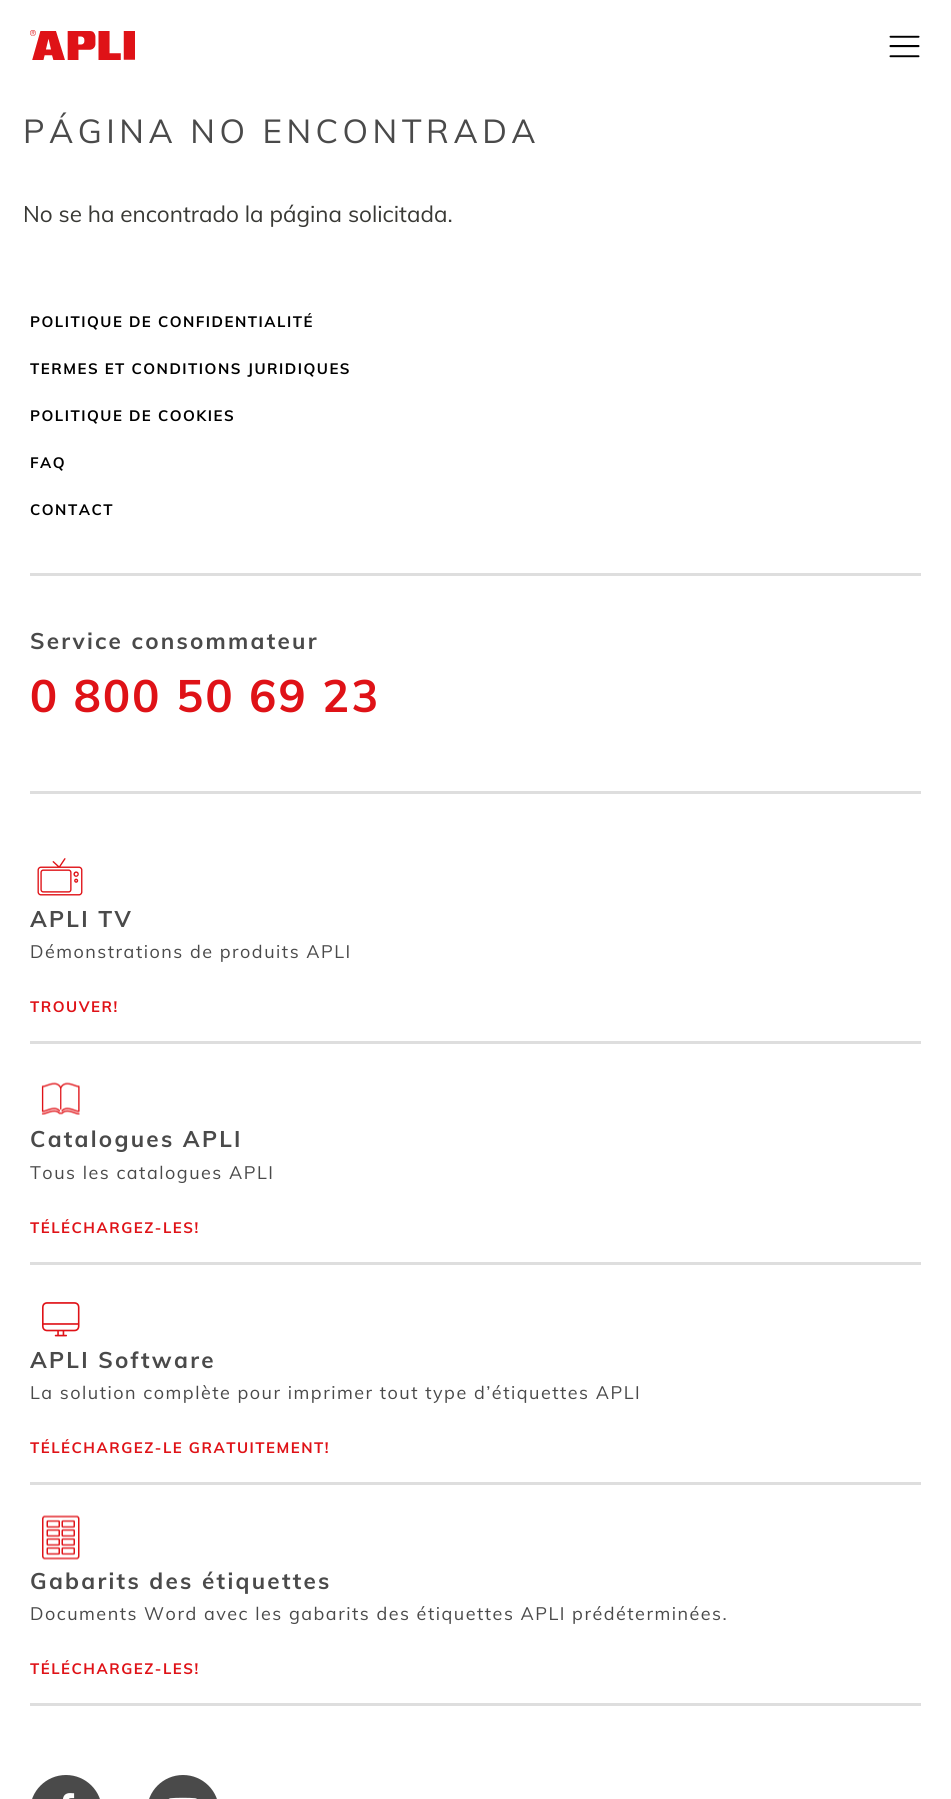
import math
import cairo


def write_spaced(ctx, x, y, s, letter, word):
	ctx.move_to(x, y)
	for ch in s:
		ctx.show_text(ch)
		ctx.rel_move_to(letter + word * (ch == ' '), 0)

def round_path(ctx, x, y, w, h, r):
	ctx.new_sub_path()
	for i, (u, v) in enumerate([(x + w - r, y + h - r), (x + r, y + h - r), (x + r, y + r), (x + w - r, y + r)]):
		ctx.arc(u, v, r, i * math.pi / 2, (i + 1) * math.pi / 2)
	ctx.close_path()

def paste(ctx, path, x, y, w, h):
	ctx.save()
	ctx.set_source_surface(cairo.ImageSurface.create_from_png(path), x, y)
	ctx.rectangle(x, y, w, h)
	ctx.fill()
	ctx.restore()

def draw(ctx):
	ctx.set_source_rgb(1, 1, 1)
	ctx.paint()
	paste(ctx, 'media/1.png', 30, 30, 105, 30)
	paste(ctx, 'media/2.png', 889, 35, 31, 23)
	ctx.select_font_face('Muli')
	ctx.set_font_size(33)
	ctx.set_source_rgb(0.29, 0.29, 0.29)
	write_spaced(ctx, 23, 143, 'PÁGINA NO ENCONTRADA', 4.5, 0)
	ctx.set_font_size(22.5)
	ctx.set_source_rgb(0.224, 0.224, 0.208)
	ctx.move_to(23, 222)
	ctx.show_text('No se ha encontrado la página solicitada.')
	ctx.set_source_rgb(0.871, 0.871, 0.871)
	ctx.rectangle(30, 573, 891, 3)
	ctx.fill()
	ctx.select_font_face('Muli', cairo.FONT_SLANT_NORMAL, cairo.FONT_WEIGHT_BOLD)
	ctx.set_font_size(15)
	ctx.set_source_rgb(0, 0, 0)
	for x, y, s in [
		(30, 327, 'POLITIQUE DE CONFIDENTIALITÉ'),
		(30, 374, 'TERMES ET CONDITIONS JURIDIQUES'),
		(30, 421, 'POLITIQUE DE COOKIES'),
		(30, 468, 'FAQ'),
		(30, 515, 'CONTACT'),
	]:
		write_spaced(ctx, x, y, s, 1.5, 0)
	ctx.set_source_rgb(0.871, 0.871, 0.871)
	ctx.rectangle(30, 791, 891, 3)
	ctx.fill()
	ctx.set_font_size(22.5)
	ctx.set_source_rgb(0.29, 0.29, 0.29)
	write_spaced(ctx, 30, 649, 'Service consommateur', 2.25, 0)
	ctx.set_font_size(45)
	ctx.set_source_rgb(0.875, 0.071, 0.09)
	write_spaced(ctx, 30, 712, '0 800 50 69 23', 2.25, 0)
	ctx.set_source_rgb(0.871, 0.871, 0.871)
	ctx.rectangle(30, 1041, 891, 3)
	ctx.fill()
	paste(ctx, 'media/3.png', 37, 858, 46, 38)
	ctx.set_font_size(22.5)
	ctx.set_source_rgb(0.29, 0.29, 0.29)
	write_spaced(ctx, 30, 927, 'APLI TV', 2.25, 0)
	ctx.select_font_face('Muli')
	ctx.set_font_size(18)
	write_spaced(ctx, 30, 958, 'Démonstrations de produits APLI', 1.5, 0)
	ctx.select_font_face('Muli', cairo.FONT_SLANT_NORMAL, cairo.FONT_WEIGHT_BOLD)
	ctx.set_font_size(15)
	ctx.set_source_rgb(0.875, 0.071, 0.09)
	write_spaced(ctx, 30, 1012, 'TROUVER!', 1.5, 0)
	ctx.set_source_rgb(0.871, 0.871, 0.871)
	ctx.rectangle(30, 1262, 891, 3)
	ctx.fill()
	paste(ctx, 'media/4.png', 41, 1082, 39, 33)
	ctx.set_font_size(22.5)
	ctx.set_source_rgb(0.29, 0.29, 0.29)
	write_spaced(ctx, 30, 1147, 'Catalogues APLI', 2.25, 0)
	ctx.select_font_face('Muli')
	ctx.set_font_size(18)
	write_spaced(ctx, 30, 1179, 'Tous les catalogues APLI', 1.5, 0)
	ctx.select_font_face('Muli', cairo.FONT_SLANT_NORMAL, cairo.FONT_WEIGHT_BOLD)
	ctx.set_font_size(15)
	ctx.set_source_rgb(0.875, 0.071, 0.09)
	write_spaced(ctx, 30, 1233, 'TÉLÉCHARGEZ-LES!', 1.5, 0)
	ctx.set_source_rgb(0.871, 0.871, 0.871)
	ctx.rectangle(30, 1482, 891, 3)
	ctx.fill()
	paste(ctx, 'media/5.png', 42, 1302, 38, 35)
	ctx.set_font_size(22.5)
	ctx.set_source_rgb(0.29, 0.29, 0.29)
	write_spaced(ctx, 30, 1368, 'APLI Software', 2.25, 0)
	ctx.select_font_face('Muli')
	ctx.set_font_size(18)
	write_spaced(ctx, 30, 1399, 'La solution complète pour imprimer tout type d’étiquettes APLI', 1.5, 0)
	ctx.select_font_face('Muli', cairo.FONT_SLANT_NORMAL, cairo.FONT_WEIGHT_BOLD)
	ctx.set_font_size(15)
	ctx.set_source_rgb(0.875, 0.071, 0.09)
	write_spaced(ctx, 30, 1453, 'TÉLÉCHARGEZ-LE GRATUITEMENT!', 1.5, 0)
	ctx.set_source_rgb(0.871, 0.871, 0.871)
	ctx.rectangle(30, 1703, 891, 3)
	ctx.fill()
	paste(ctx, 'media/6.png', 42, 1515, 38, 45)
	ctx.set_font_size(22.5)
	ctx.set_source_rgb(0.29, 0.29, 0.29)
	write_spaced(ctx, 30, 1589, 'Gabarits des étiquettes', 2.25, 0)
	ctx.select_font_face('Muli')
	ctx.set_font_size(18)
	write_spaced(ctx, 30, 1620, 'Documents Word avec les gabarits des étiquettes APLI prédéterminées.', 1.5, 0)
	ctx.select_font_face('Muli', cairo.FONT_SLANT_NORMAL, cairo.FONT_WEIGHT_BOLD)
	ctx.set_font_size(15)
	ctx.set_source_rgb(0.875, 0.071, 0.09)
	write_spaced(ctx, 30, 1674, 'TÉLÉCHARGEZ-LES!', 1.5, 0)
	ctx.set_source_rgb(0.29, 0.29, 0.29)
	round_path(ctx, 30, 1775, 72, 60, 36)
	ctx.fill()
	paste(ctx, 'media/7.png', 63, 1793, 12, 6)
	round_path(ctx, 147, 1775, 72, 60, 36)
	ctx.fill()
	paste(ctx, 'media/8.png', 168, 1797, 29, 2)


surface = cairo.ImageSurface(cairo.FORMAT_RGB24, 951, 1799)
ctx = cairo.Context(surface)
options = cairo.FontOptions()
options.set_hint_metrics(cairo.HINT_METRICS_OFF)
options.set_hint_style(cairo.HINT_STYLE_NONE)
ctx.set_font_options(options)
ctx.set_miter_limit(4)
draw(ctx)
surface.write_to_png('image.png')
